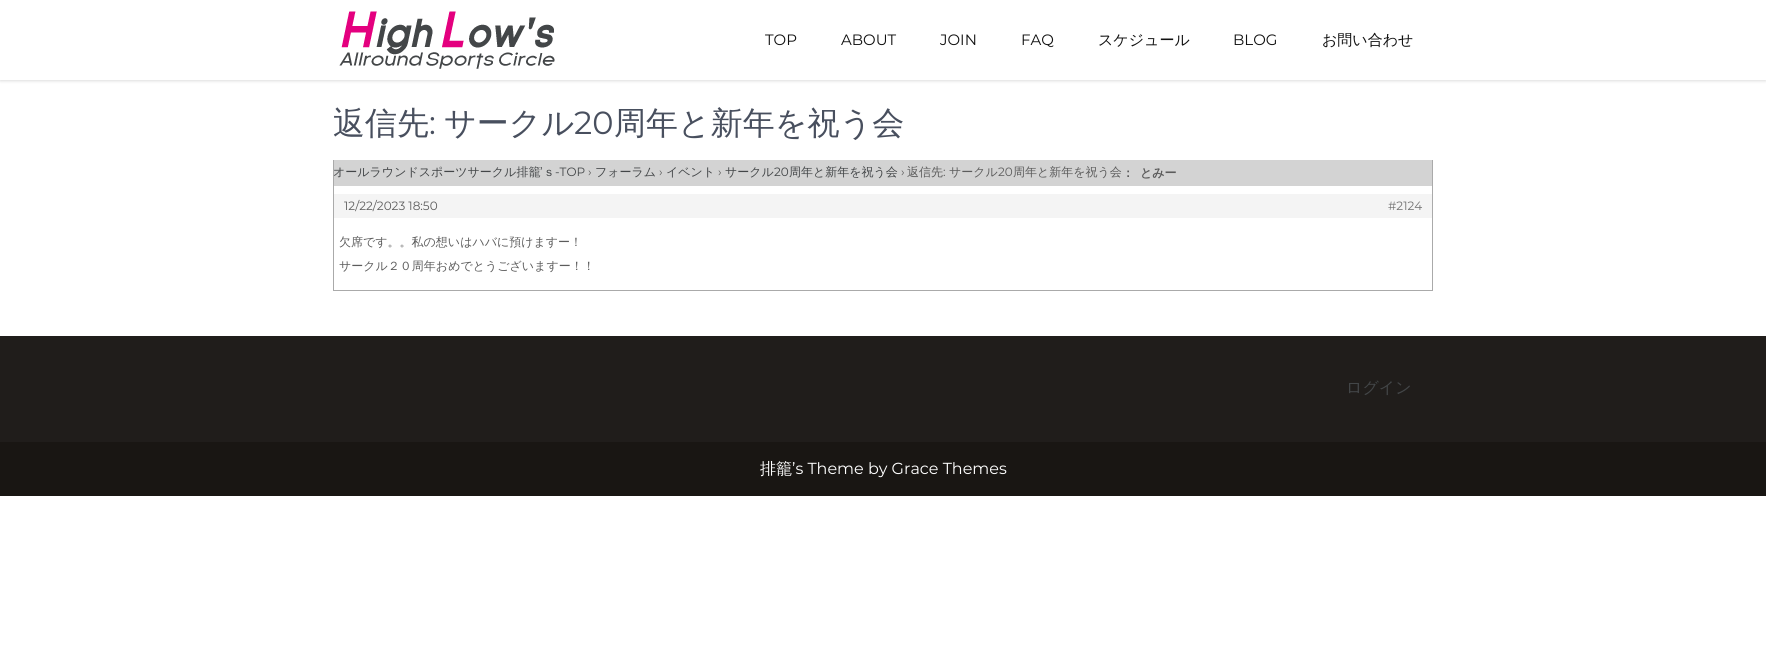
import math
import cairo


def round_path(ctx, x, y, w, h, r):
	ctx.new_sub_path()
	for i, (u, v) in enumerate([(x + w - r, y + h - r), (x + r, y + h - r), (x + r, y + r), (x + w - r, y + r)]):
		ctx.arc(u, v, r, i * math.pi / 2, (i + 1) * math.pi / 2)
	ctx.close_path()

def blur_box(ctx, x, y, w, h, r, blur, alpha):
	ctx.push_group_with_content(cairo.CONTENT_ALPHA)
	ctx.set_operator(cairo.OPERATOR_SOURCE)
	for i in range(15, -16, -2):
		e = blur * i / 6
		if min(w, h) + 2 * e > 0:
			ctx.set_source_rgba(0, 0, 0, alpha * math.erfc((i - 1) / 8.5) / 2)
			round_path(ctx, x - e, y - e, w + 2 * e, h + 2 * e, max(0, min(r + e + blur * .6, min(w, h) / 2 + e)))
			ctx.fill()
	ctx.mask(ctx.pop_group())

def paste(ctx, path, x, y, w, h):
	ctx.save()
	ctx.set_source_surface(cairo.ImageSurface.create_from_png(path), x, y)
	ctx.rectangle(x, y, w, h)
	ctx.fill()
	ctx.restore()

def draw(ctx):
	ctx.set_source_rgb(1, 1, 1)
	ctx.paint()
	ctx.save()
	ctx.rectangle(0, 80, 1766, 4)
	ctx.clip()
	ctx.set_source_rgb(0.867, 0.867, 0.867)
	blur_box(ctx, 0, 1, 1766, 80, 0, 1.5, 1)
	ctx.restore()
	paste(ctx, 'media/1.png', 339, 11, 216, 58)
	ctx.select_font_face('Montserrat')
	ctx.set_font_size(15)
	ctx.set_source_rgb(0.067, 0.067, 0.067)
	for x, y, s in [
		(765, 45, 'TOP'),
		(841, 45, 'ABOUT'),
		(940, 45, 'JOIN'),
		(1021, 45, 'FAQ'),
	]:
		ctx.move_to(x, y)
		ctx.show_text(s)
	ctx.select_font_face('WenQuanYi Zen Hei Medium')
	ctx.move_to(1098, 45)
	ctx.show_text('スケジュール')
	ctx.select_font_face('Montserrat')
	ctx.move_to(1233, 45)
	ctx.show_text('BLOG')
	ctx.select_font_face('WenQuanYi Zen Hei Medium')
	ctx.move_to(1322, 45)
	ctx.show_text('お問い合わせ')
	ctx.set_font_size(32)
	ctx.set_source_rgb(0.282, 0.31, 0.369)
	ctx.move_to(333, 134)
	ctx.show_text('返信先')
	ctx.select_font_face('Montserrat')
	ctx.move_to(429, 134)
	ctx.show_text(':')
	ctx.select_font_face('WenQuanYi Zen Hei Medium')
	ctx.move_to(444, 134)
	ctx.show_text('サークル')
	ctx.select_font_face('Montserrat')
	ctx.move_to(574, 134)
	ctx.show_text('20')
	ctx.select_font_face('WenQuanYi Zen Hei Medium')
	ctx.move_to(614, 134)
	ctx.show_text('周年と新年を祝う会')
	ctx.set_source_rgb(0.667, 0.667, 0.667)
	ctx.rectangle(1432, 160, 1, 131)
	ctx.rectangle(333, 290, 1100, 1)
	ctx.rectangle(333, 160, 1, 131)
	ctx.fill()
	ctx.set_source_rgb(0.827, 0.827, 0.827)
	ctx.rectangle(334, 160, 1098, 26)
	ctx.fill()
	ctx.set_font_size(12)
	ctx.set_source_rgb(0.263, 0.275, 0.282)
	ctx.move_to(333, 176)
	ctx.show_text('オールラウンドスポーツサークル排籠')
	ctx.select_font_face('Montserrat')
	ctx.move_to(540, 176)
	ctx.show_text('’')
	ctx.select_font_face('WenQuanYi Zen Hei Medium')
	ctx.move_to(543, 176)
	ctx.show_text('ｓ')
	ctx.select_font_face('Montserrat')
	ctx.move_to(555, 176)
	ctx.show_text('-TOP')
	ctx.set_source_rgb(0.361, 0.361, 0.361)
	ctx.move_to(588, 176)
	ctx.show_text('›')
	ctx.select_font_face('WenQuanYi Zen Hei Medium')
	ctx.set_source_rgb(0.263, 0.275, 0.282)
	ctx.move_to(595, 176)
	ctx.show_text('フォーラム')
	ctx.select_font_face('Montserrat')
	ctx.set_source_rgb(0.361, 0.361, 0.361)
	ctx.move_to(659, 176)
	ctx.show_text('›')
	ctx.select_font_face('WenQuanYi Zen Hei Medium')
	ctx.set_source_rgb(0.263, 0.275, 0.282)
	ctx.move_to(666, 176)
	ctx.show_text('イベント')
	ctx.select_font_face('Montserrat')
	ctx.set_source_rgb(0.361, 0.361, 0.361)
	ctx.move_to(718, 176)
	ctx.show_text('›')
	ctx.select_font_face('WenQuanYi Zen Hei Medium')
	ctx.set_source_rgb(0.263, 0.275, 0.282)
	ctx.move_to(725, 176)
	ctx.show_text('サークル')
	ctx.select_font_face('Montserrat')
	ctx.move_to(774, 176)
	ctx.show_text('20')
	ctx.select_font_face('WenQuanYi Zen Hei Medium')
	ctx.move_to(789, 176)
	ctx.show_text('周年と新年を祝う会')
	ctx.select_font_face('Montserrat')
	ctx.set_source_rgb(0.361, 0.361, 0.361)
	ctx.move_to(901, 176)
	ctx.show_text('›')
	ctx.select_font_face('WenQuanYi Zen Hei Medium')
	ctx.move_to(907, 176)
	ctx.show_text('返信先')
	ctx.select_font_face('Montserrat')
	ctx.move_to(943, 176)
	ctx.show_text(':')
	ctx.select_font_face('WenQuanYi Zen Hei Medium')
	ctx.move_to(949, 176)
	ctx.show_text('サークル')
	ctx.select_font_face('Montserrat')
	ctx.move_to(998, 176)
	ctx.show_text('20')
	ctx.select_font_face('WenQuanYi Zen Hei Medium')
	ctx.move_to(1013, 176)
	ctx.show_text('周年と新年を祝う会')
	ctx.select_font_face('WenQuanYi Zen Hei', cairo.FONT_SLANT_NORMAL, cairo.FONT_WEIGHT_BOLD)
	ctx.move_to(1122, 177)
	ctx.show_text('：')
	ctx.move_to(1140, 177)
	ctx.show_text('とみー')
	ctx.set_source_rgb(0.957, 0.957, 0.957)
	ctx.rectangle(334, 194, 1098, 24)
	ctx.fill()
	ctx.select_font_face('Montserrat')
	ctx.set_source_rgb(0.361, 0.361, 0.361)
	ctx.move_to(344, 210)
	ctx.show_text('12/22/2023 18:50')
	ctx.set_source_rgb(0.439, 0.439, 0.439)
	ctx.move_to(1388, 210)
	ctx.show_text('#2124')
	ctx.select_font_face('WenQuanYi Zen Hei Medium')
	ctx.set_source_rgb(0.361, 0.361, 0.361)
	ctx.move_to(339, 246)
	ctx.show_text('欠席です。。私の想いはハバに預けますー！')
	ctx.move_to(339, 270)
	ctx.show_text('サークル２０周年おめでとうございますー！！')
	ctx.set_source_rgb(0.125, 0.114, 0.106)
	ctx.rectangle(0, 336, 1766, 106)
	ctx.fill()
	ctx.set_font_size(16)
	ctx.set_source_rgb(0.263, 0.275, 0.282)
	ctx.move_to(1346, 393)
	ctx.show_text('ログイン')
	ctx.set_source_rgb(0.098, 0.086, 0.078)
	ctx.rectangle(0, 442, 1766, 54)
	ctx.fill()
	ctx.set_source_rgb(1, 1, 1)
	ctx.move_to(760, 474)
	ctx.show_text('排籠')
	ctx.select_font_face('Montserrat')
	ctx.move_to(792, 474)
	ctx.show_text('’s Theme by Grace Themes')


surface = cairo.ImageSurface(cairo.FORMAT_RGB24, 1766, 660)
ctx = cairo.Context(surface)
options = cairo.FontOptions()
options.set_hint_metrics(cairo.HINT_METRICS_OFF)
options.set_hint_style(cairo.HINT_STYLE_NONE)
ctx.set_font_options(options)
ctx.set_miter_limit(4)
draw(ctx)
surface.write_to_png('image.png')
